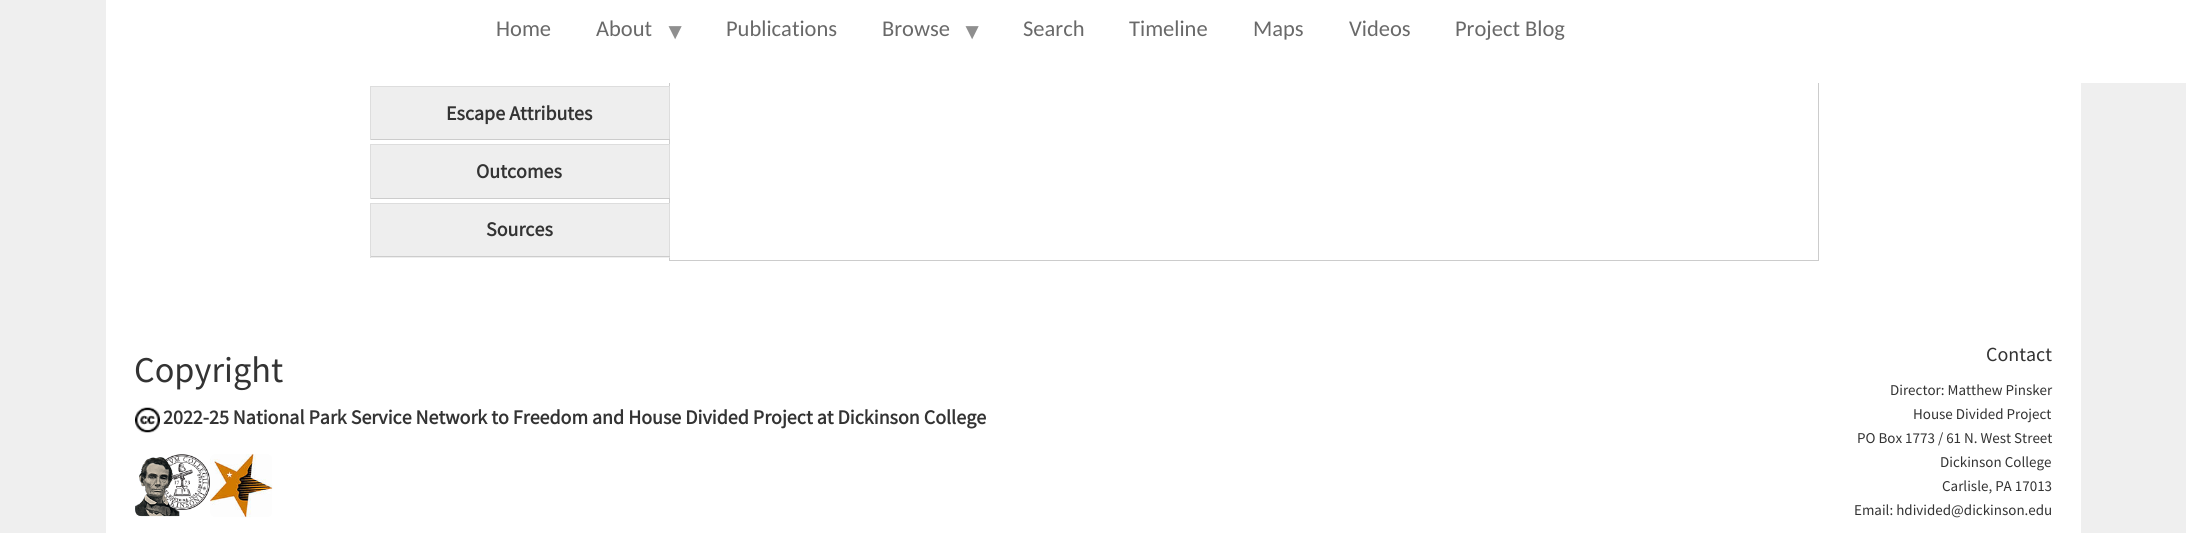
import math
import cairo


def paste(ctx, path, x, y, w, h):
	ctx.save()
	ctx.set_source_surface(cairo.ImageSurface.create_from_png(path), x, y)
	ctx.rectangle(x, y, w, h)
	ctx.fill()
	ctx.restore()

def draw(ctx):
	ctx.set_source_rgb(0.937, 0.937, 0.937)
	ctx.paint()
	ctx.set_source_rgb(1, 1, 1)
	ctx.rectangle(106, 83, 1975, 450)
	ctx.fill()
	ctx.rectangle(669.5, -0.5, 1149, 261)
	ctx.set_source_rgb(0.8, 0.8, 0.8)
	ctx.set_line_width(1)
	ctx.stroke()
	ctx.set_source_rgb(1, 1, 1)
	ctx.rectangle(106, 0, 2080, 83)
	ctx.fill()
	ctx.select_font_face('Carlito')
	ctx.set_font_size(22.5)
	ctx.set_source_rgb(0.412, 0.412, 0.412)
	ctx.move_to(496, 36)
	ctx.show_text('Home')
	ctx.move_to(596, 36)
	ctx.show_text('About')
	ctx.select_font_face('Liberation Sans')
	ctx.set_source_rgb(0.561, 0.561, 0.561)
	ctx.move_to(664, 39)
	ctx.show_text('▼')
	ctx.select_font_face('Carlito')
	ctx.set_source_rgb(0.412, 0.412, 0.412)
	ctx.move_to(726, 36)
	ctx.show_text('Publications')
	ctx.move_to(882, 36)
	ctx.show_text('Browse')
	ctx.select_font_face('Liberation Sans')
	ctx.set_source_rgb(0.561, 0.561, 0.561)
	ctx.move_to(961, 39)
	ctx.show_text('▼')
	ctx.select_font_face('Carlito')
	ctx.set_source_rgb(0.412, 0.412, 0.412)
	for x, y, s in [
		(1023, 36, 'Search'),
		(1129, 36, 'Timeline'),
		(1253, 36, 'Maps'),
		(1349, 36, 'Videos'),
		(1455, 36, 'Project Blog'),
	]:
		ctx.move_to(x, y)
		ctx.show_text(s)
	ctx.set_source_rgb(0.933, 0.933, 0.933)
	ctx.rectangle(371, 87, 298, 52)
	ctx.fill()
	ctx.set_source_rgb(0.867, 0.867, 0.867)
	ctx.rectangle(370, 86, 300, 1)
	ctx.rectangle(669, 86, 1, 54)
	ctx.fill()
	ctx.set_source_rgb(0.8, 0.8, 0.8)
	ctx.rectangle(370, 139, 300, 1)
	ctx.fill()
	ctx.set_source_rgb(0.867, 0.867, 0.867)
	ctx.rectangle(370, 86, 1, 54)
	ctx.fill()
	ctx.select_font_face('Source Sans Pro', cairo.FONT_SLANT_NORMAL, cairo.FONT_WEIGHT_BOLD)
	ctx.set_font_size(20)
	ctx.set_source_rgb(0.2, 0.2, 0.2)
	ctx.move_to(446, 120)
	ctx.show_text('Escape Attributes')
	ctx.set_source_rgb(0.933, 0.933, 0.933)
	ctx.rectangle(371, 145, 298, 53)
	ctx.fill()
	ctx.set_source_rgb(0.867, 0.867, 0.867)
	ctx.rectangle(370, 144, 300, 1)
	ctx.rectangle(669, 144, 1, 55)
	ctx.fill()
	ctx.set_source_rgb(0.8, 0.8, 0.8)
	ctx.rectangle(370, 198, 300, 1)
	ctx.fill()
	ctx.set_source_rgb(0.867, 0.867, 0.867)
	ctx.rectangle(370, 144, 1, 55)
	ctx.fill()
	ctx.set_source_rgb(0.2, 0.2, 0.2)
	ctx.move_to(476, 178)
	ctx.show_text('Outcomes')
	ctx.set_source_rgb(0.933, 0.933, 0.933)
	ctx.rectangle(371, 204, 298, 54)
	ctx.fill()
	ctx.set_source_rgb(0.867, 0.867, 0.867)
	ctx.rectangle(370, 203, 300, 1)
	ctx.rectangle(669, 203, 1, 55)
	ctx.fill()
	ctx.set_source_rgb(0.8, 0.8, 0.8)
	ctx.rectangle(370, 256, 300, 1)
	ctx.fill()
	ctx.set_source_rgb(0.867, 0.867, 0.867)
	ctx.rectangle(370, 203, 1, 55)
	ctx.fill()
	ctx.set_source_rgb(0.2, 0.2, 0.2)
	ctx.move_to(486, 236)
	ctx.show_text('Sources')
	ctx.select_font_face('Source Sans Pro')
	ctx.set_font_size(36.25)
	ctx.move_to(134, 382)
	ctx.show_text('Copyright')
	paste(ctx, 'media/1.png', 135, 407, 25, 26)
	ctx.select_font_face('Source Sans Pro', cairo.FONT_SLANT_NORMAL, cairo.FONT_WEIGHT_BOLD)
	ctx.set_font_size(20)
	ctx.move_to(163, 424)
	ctx.show_text('2022-25 National Park Service Network to Freedom and House Divided Project at Dickinson College')
	paste(ctx, 'media/2.png', 135, 454, 75, 63)
	paste(ctx, 'media/3.png', 210, 453, 63, 65)
	ctx.select_font_face('Source Sans Pro')
	ctx.move_to(1986, 361)
	ctx.show_text('Contact')
	ctx.set_font_size(15)
	for x, y, s in [
		(1890, 395, 'Director: Matthew Pinsker'),
		(1913, 419, 'House Divided Project'),
		(1857, 443, 'PO Box 1773 / 61 N. West Street'),
		(1940, 467, 'Dickinson College'),
		(1942, 491, 'Carlisle, PA 17013'),
		(1854, 515, 'Email: hdivided@dickinson.edu'),
	]:
		ctx.move_to(x, y)
		ctx.show_text(s)


surface = cairo.ImageSurface(cairo.FORMAT_RGB24, 2186, 533)
ctx = cairo.Context(surface)
options = cairo.FontOptions()
options.set_hint_metrics(cairo.HINT_METRICS_OFF)
options.set_hint_style(cairo.HINT_STYLE_NONE)
ctx.set_font_options(options)
ctx.set_miter_limit(4)
draw(ctx)
surface.write_to_png('image.png')
